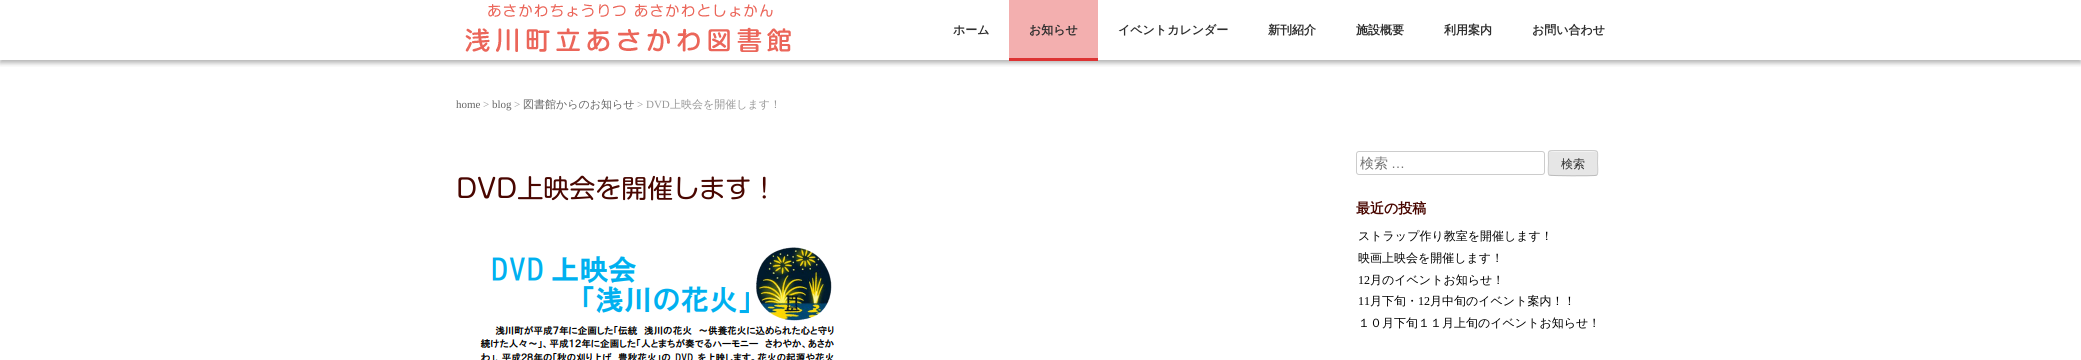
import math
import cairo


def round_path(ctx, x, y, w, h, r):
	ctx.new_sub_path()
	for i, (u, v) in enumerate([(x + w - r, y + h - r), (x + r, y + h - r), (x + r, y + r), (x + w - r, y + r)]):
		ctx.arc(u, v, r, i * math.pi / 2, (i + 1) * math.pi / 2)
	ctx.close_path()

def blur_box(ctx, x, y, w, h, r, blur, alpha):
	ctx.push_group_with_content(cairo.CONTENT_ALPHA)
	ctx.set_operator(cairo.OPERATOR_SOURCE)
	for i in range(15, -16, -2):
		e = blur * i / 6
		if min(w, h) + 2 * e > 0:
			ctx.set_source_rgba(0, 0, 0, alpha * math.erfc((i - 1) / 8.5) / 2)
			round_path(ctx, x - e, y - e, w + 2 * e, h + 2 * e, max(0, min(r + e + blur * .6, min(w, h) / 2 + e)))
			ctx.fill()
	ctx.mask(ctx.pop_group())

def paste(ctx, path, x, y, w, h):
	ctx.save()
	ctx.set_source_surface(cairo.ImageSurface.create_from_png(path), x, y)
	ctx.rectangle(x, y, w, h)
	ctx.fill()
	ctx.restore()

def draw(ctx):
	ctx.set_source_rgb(1, 1, 1)
	ctx.paint()
	ctx.save()
	ctx.rectangle(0, 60, 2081, 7)
	ctx.clip()
	ctx.set_source_rgb(0, 0, 0)
	blur_box(ctx, 0, 3, 2081, 60, 0, 2.5, 0.3)
	ctx.restore()
	paste(ctx, 'media/1.png', 465, 4, 326, 48)
	ctx.select_font_face('WenQuanYi Zen Hei', cairo.FONT_SLANT_NORMAL, cairo.FONT_WEIGHT_BOLD)
	ctx.set_font_size(12)
	ctx.set_source_rgb(0.18, 0.18, 0.18)
	ctx.move_to(953, 34)
	ctx.show_text('ホーム')
	ctx.set_source_rgb(0.953, 0.686, 0.686)
	ctx.rectangle(1009, 0, 89, 58)
	ctx.fill()
	ctx.set_source_rgb(0.867, 0.2, 0.2)
	ctx.rectangle(1009, 58, 89, 3)
	ctx.fill()
	ctx.set_source_rgb(0.18, 0.18, 0.18)
	for x, y, s in [
		(1029, 34, 'お知らせ'),
		(1118, 34, 'イベントカレンダー'),
		(1268, 34, '新刊紹介'),
		(1356, 34, '施設概要'),
		(1444, 34, '利用案内'),
		(1532, 34, 'お問い合わせ'),
	]:
		ctx.move_to(x, y)
		ctx.show_text(s)
	ctx.select_font_face('Liberation Serif')
	ctx.set_font_size(11)
	ctx.set_source_rgb(0.4, 0.4, 0.4)
	ctx.move_to(456, 108)
	ctx.show_text('home')
	ctx.set_source_rgb(0.6, 0.6, 0.6)
	ctx.move_to(483, 108)
	ctx.show_text('>')
	ctx.set_source_rgb(0.4, 0.4, 0.4)
	ctx.move_to(492, 108)
	ctx.show_text('blog')
	ctx.set_source_rgb(0.6, 0.6, 0.6)
	ctx.move_to(514, 108)
	ctx.show_text('>')
	ctx.select_font_face('WenQuanYi Zen Hei Medium')
	ctx.set_source_rgb(0.4, 0.4, 0.4)
	ctx.move_to(523, 108)
	ctx.show_text('図書館からのお知らせ')
	ctx.select_font_face('Liberation Serif')
	ctx.set_source_rgb(0.6, 0.6, 0.6)
	ctx.move_to(637, 108)
	ctx.show_text('> DVD')
	ctx.select_font_face('WenQuanYi Zen Hei Medium')
	ctx.move_to(670, 108)
	ctx.show_text('上映会を開催します！')
	ctx.select_font_face('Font')
	ctx.set_font_size(26)
	ctx.set_source_rgb(0.286, 0.027, 0)
	ctx.move_to(456, 198)
	ctx.show_text('DVD上映会を開催します！')
	paste(ctx, 'media/2.png', 480, 247, 354, 113)
	round_path(ctx, 1356.5, 151.5, 188, 23, 2.5)
	ctx.set_source_rgb(0.8, 0.8, 0.8)
	ctx.set_line_width(1)
	ctx.stroke()
	ctx.select_font_face('WenQuanYi Zen Hei Medium')
	ctx.set_font_size(14)
	ctx.set_source_rgb(0.459, 0.459, 0.459)
	ctx.move_to(1360, 168)
	ctx.show_text('検索')
	ctx.select_font_face('Liberation Sans')
	ctx.move_to(1391, 168)
	ctx.show_text('…')
	ctx.set_source_rgb(0.902, 0.902, 0.902)
	round_path(ctx, 1548, 150, 50, 26, 3)
	ctx.fill()
	ctx.set_source_rgb(0.953, 0.953, 0.953)
	ctx.new_path()
	ctx.move_to(1551, 152)
	ctx.line_to(1595, 152)
	ctx.curve_to(1596, 152, 1597, 153, 1597, 154)
	ctx.curve_to(1597, 149, 1592, 151, 1588, 151)
	ctx.line_to(1558, 151)
	ctx.curve_to(1554, 151, 1549, 149, 1549, 154)
	ctx.curve_to(1549, 153, 1550, 152, 1551, 152)
	ctx.close_path()
	ctx.fill()
	ctx.new_path()
	ctx.move_to(1597, 175)
	ctx.line_to(1595, 175.5)
	ctx.curve_to(1591, 176, 1550.5, 176, 1549, 175)
	ctx.set_source_rgb(0.733, 0.733, 0.733)
	ctx.stroke()
	ctx.new_path()
	ctx.move_to(1549, 175)
	ctx.curve_to(1547.5, 173, 1548.5, 165.5, 1548.5, 163)
	ctx.curve_to(1548.5, 150, 1546, 150.5, 1558.5, 150.5)
	ctx.line_to(1587.5, 150.5)
	ctx.curve_to(1600, 150.5, 1597.5, 150, 1597.5, 163)
	ctx.curve_to(1597.5, 165.5, 1598.5, 173, 1597, 175)
	ctx.set_source_rgb(0.8, 0.8, 0.8)
	ctx.stroke()
	ctx.select_font_face('WenQuanYi Zen Hei Medium')
	ctx.set_font_size(12)
	ctx.set_source_rgb(0.18, 0.18, 0.18)
	ctx.move_to(1561, 168)
	ctx.show_text('検索')
	ctx.select_font_face('WenQuanYi Zen Hei', cairo.FONT_SLANT_NORMAL, cairo.FONT_WEIGHT_BOLD)
	ctx.set_font_size(14)
	ctx.set_source_rgb(0.286, 0.027, 0)
	ctx.move_to(1356, 213)
	ctx.show_text('最近の投稿')
	ctx.select_font_face('WenQuanYi Zen Hei Medium')
	ctx.set_font_size(12)
	ctx.set_source_rgb(0, 0, 0)
	ctx.move_to(1358, 240)
	ctx.show_text('ストラップ作り教室を開催します！')
	ctx.move_to(1358, 262)
	ctx.show_text('映画上映会を開催します！')
	ctx.select_font_face('Liberation Serif')
	ctx.move_to(1358, 284)
	ctx.show_text('12')
	ctx.select_font_face('WenQuanYi Zen Hei Medium')
	ctx.move_to(1370, 284)
	ctx.show_text('月のイベントお知らせ！')
	ctx.select_font_face('Liberation Serif')
	ctx.move_to(1358, 305)
	ctx.show_text('11')
	ctx.select_font_face('WenQuanYi Zen Hei Medium')
	ctx.move_to(1370, 305)
	ctx.show_text('月下旬・')
	ctx.select_font_face('Liberation Serif')
	ctx.move_to(1418, 305)
	ctx.show_text('12')
	ctx.select_font_face('WenQuanYi Zen Hei Medium')
	ctx.move_to(1430, 305)
	ctx.show_text('月中旬のイベント案内！！')
	ctx.move_to(1358, 327)
	ctx.show_text('１０月下旬１１月上旬のイベントお知らせ！')


surface = cairo.ImageSurface(cairo.FORMAT_RGB24, 2081, 360)
ctx = cairo.Context(surface)
options = cairo.FontOptions()
options.set_hint_metrics(cairo.HINT_METRICS_OFF)
options.set_hint_style(cairo.HINT_STYLE_NONE)
ctx.set_font_options(options)
ctx.set_miter_limit(4)
draw(ctx)
surface.write_to_png('image.png')
